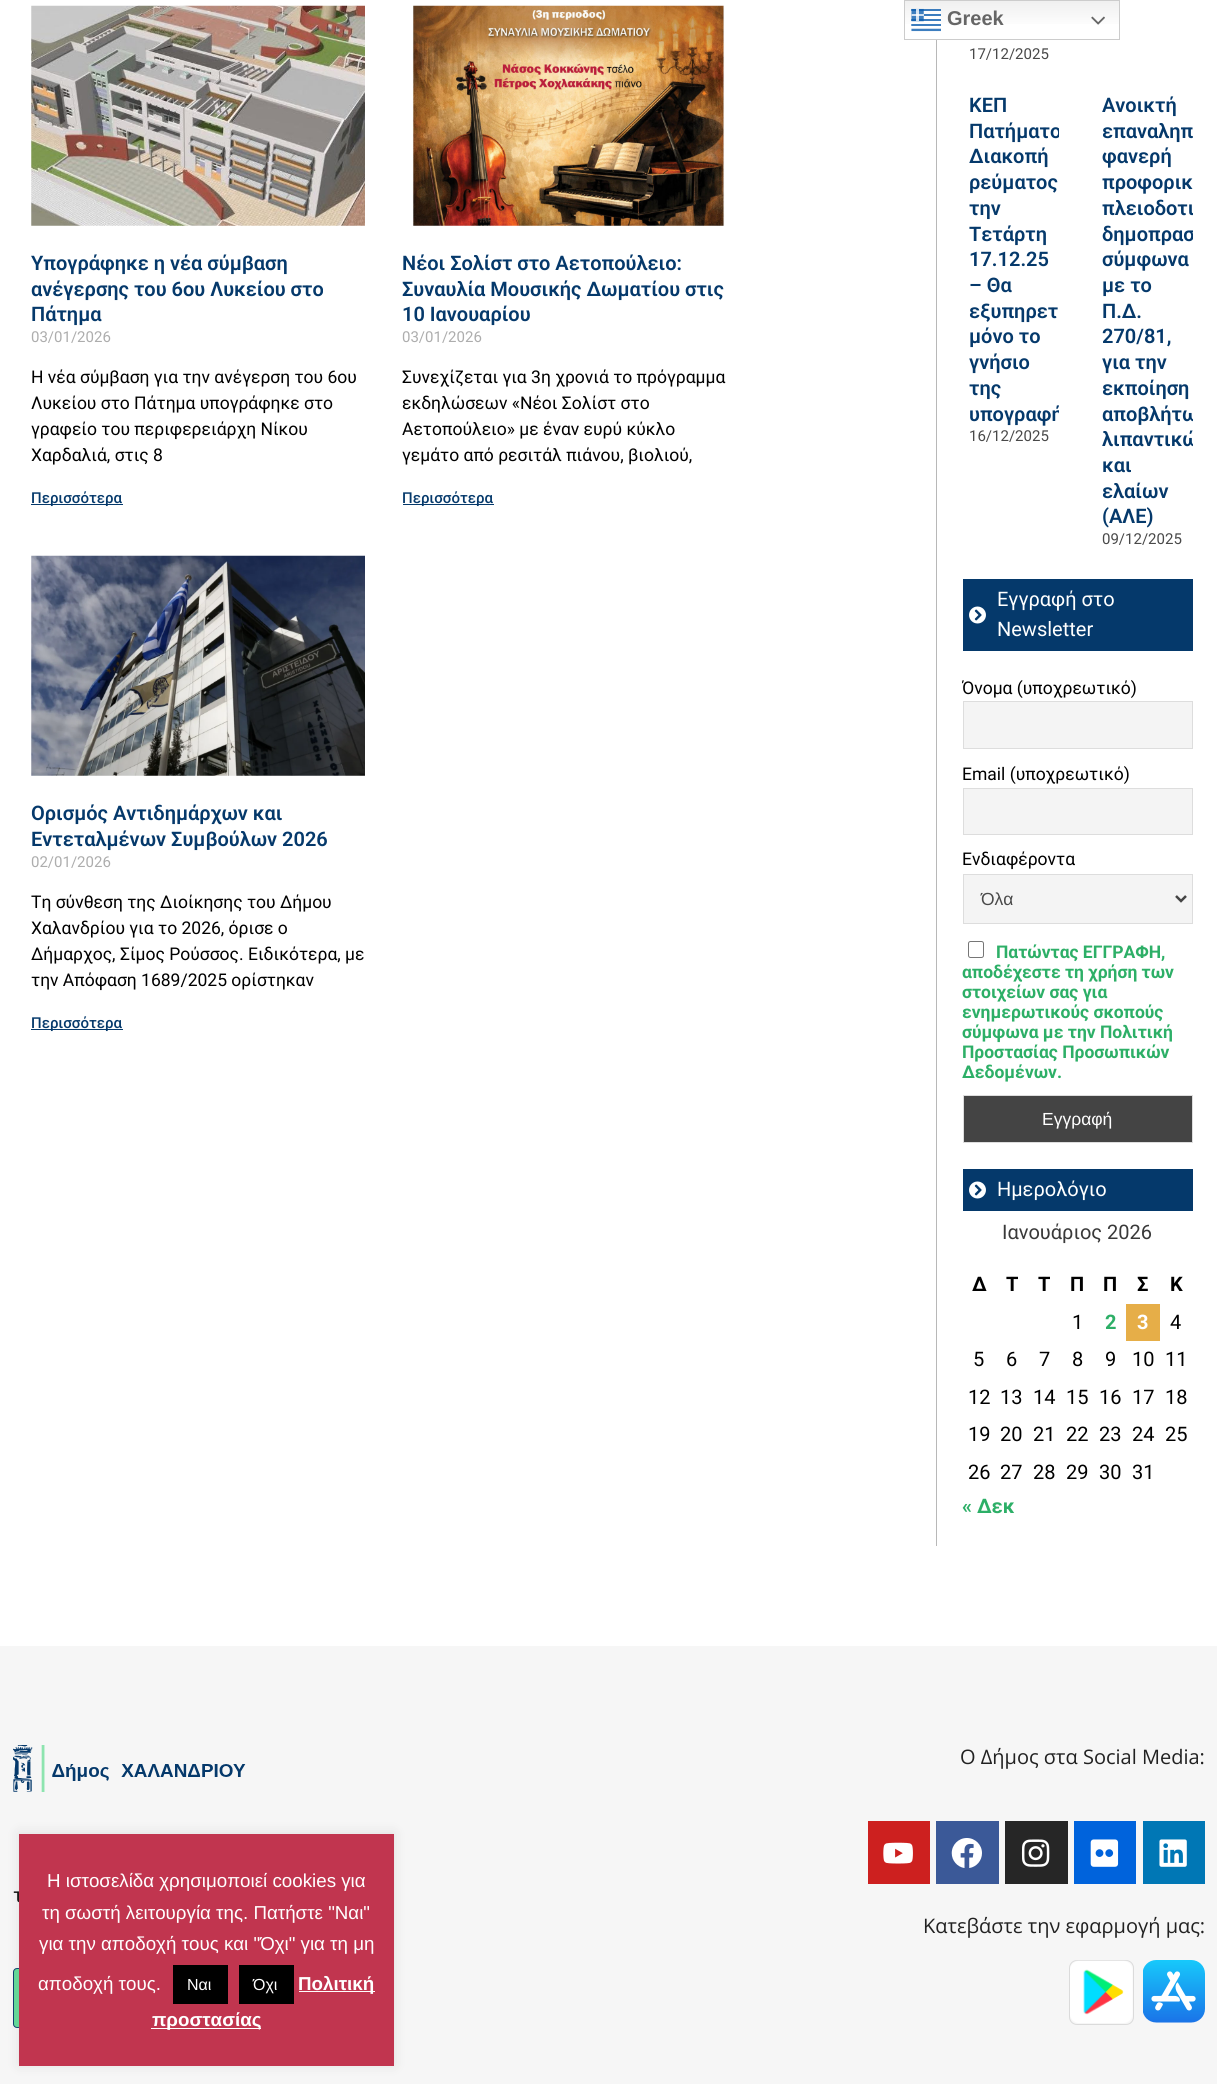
import math
import cairo


def round_path(ctx, x, y, w, h, r):
	ctx.new_sub_path()
	for i, (u, v) in enumerate([(x + w - r, y + h - r), (x + r, y + h - r), (x + r, y + r), (x + w - r, y + r)]):
		ctx.arc(u, v, r, i * math.pi / 2, (i + 1) * math.pi / 2)
	ctx.close_path()

def blur_box(ctx, x, y, w, h, r, blur, alpha):
	ctx.push_group_with_content(cairo.CONTENT_ALPHA)
	ctx.set_operator(cairo.OPERATOR_SOURCE)
	for i in range(15, -16, -2):
		e = blur * i / 6
		if min(w, h) + 2 * e > 0:
			ctx.set_source_rgba(0, 0, 0, alpha * math.erfc((i - 1) / 8.5) / 2)
			round_path(ctx, x - e, y - e, w + 2 * e, h + 2 * e, max(0, min(r + e + blur * .6, min(w, h) / 2 + e)))
			ctx.fill()
	ctx.mask(ctx.pop_group())

def paste(ctx, path, x, y, w, h):
	ctx.save()
	ctx.set_source_surface(cairo.ImageSurface.create_from_png(path), x, y)
	ctx.rectangle(x, y, w, h)
	ctx.fill()
	ctx.restore()

def draw(ctx):
	ctx.set_source_rgb(1, 1, 1)
	ctx.paint()
	gradient = cairo.LinearGradient(1012, 0, 1012, 40)
	gradient.add_color_stop_rgba(0, 0.937, 0.937, 0.937, 1)
	gradient.add_color_stop_rgba(0.7, 1, 1, 1, 1)
	ctx.set_source(gradient)
	ctx.rectangle(905, 1, 214, 23)
	ctx.fill()
	ctx.rectangle(904.5, 0.5, 215, 39)
	ctx.set_source_rgb(0.8, 0.8, 0.8)
	ctx.set_line_width(1)
	ctx.stroke()
	paste(ctx, 'media/1.png', 911, 8, 30, 24)
	ctx.select_font_face('Liberation Sans', cairo.FONT_SLANT_NORMAL, cairo.FONT_WEIGHT_BOLD)
	ctx.set_font_size(20)
	ctx.set_source_rgb(0.4, 0.4, 0.4)
	ctx.move_to(947, 25)
	ctx.show_text('Greek')
	paste(ctx, 'media/2.png', 1091, 16, 14, 9)
	ctx.set_source_rgb(0.722, 0.722, 0.722)
	ctx.rectangle(936, 40, 1, 1506)
	ctx.fill()
	paste(ctx, 'media/3.png', 31, 5, 334, 221)
	ctx.select_font_face('Roboto SemiBold')
	ctx.set_source_rgb(0.02, 0.224, 0.42)
	for x, y, s in [
		(31, 270, 'Υπογράφηκε η νέα σύμβαση'),
		(31, 296, 'ανέγερσης του 6ου Λυκείου στο'),
		(31, 321, 'Πάτημα'),
	]:
		ctx.move_to(x, y)
		ctx.show_text(s)
	ctx.select_font_face('Roboto')
	ctx.set_font_size(15)
	ctx.set_source_rgb(0.678, 0.678, 0.678)
	ctx.move_to(31, 342)
	ctx.show_text('03/01/2026')
	ctx.set_font_size(17.5)
	ctx.set_source_rgb(0, 0, 0)
	for x, y, s in [
		(31, 383, 'Η νέα σύμβαση για την ανέγερση του 6ου'),
		(31, 409, 'Λυκείου στο Πάτημα υπογράφηκε στο'),
		(31, 435, 'γραφείο του περιφερειάρχη Νίκου'),
		(31, 461, 'Χαρδαλιά, στις 8'),
	]:
		ctx.move_to(x, y)
		ctx.show_text(s)
	ctx.set_source_rgb(0.02, 0.224, 0.42)
	ctx.rectangle(31, 504, 92, 1)
	ctx.fill()
	ctx.select_font_face('Roboto Medium')
	ctx.set_font_size(15)
	ctx.move_to(31, 503)
	ctx.show_text('Περισσότερα')
	paste(ctx, 'media/4.png', 412, 5, 313, 221)
	ctx.select_font_face('Roboto SemiBold')
	ctx.set_font_size(20)
	for x, y, s in [
		(402, 270, 'Νέοι Σολίστ στο Αετοπούλειο:'),
		(402, 296, 'Συναυλία Μουσικής Δωματίου στις'),
		(402, 321, '10 Ιανουαρίου'),
	]:
		ctx.move_to(x, y)
		ctx.show_text(s)
	ctx.select_font_face('Roboto')
	ctx.set_font_size(15)
	ctx.set_source_rgb(0.678, 0.678, 0.678)
	ctx.move_to(402, 342)
	ctx.show_text('03/01/2026')
	ctx.set_font_size(17.5)
	ctx.set_source_rgb(0, 0, 0)
	for x, y, s in [
		(402, 383, 'Συνεχίζεται για 3η χρονιά το πρόγραμμα'),
		(402, 409, 'εκδηλώσεων «Νέοι Σολίστ στο'),
		(402, 435, 'Αετοπούλειο» με έναν ευρύ κύκλο'),
		(402, 461, 'γεμάτο από ρεσιτάλ πιάνου, βιολιού,'),
	]:
		ctx.move_to(x, y)
		ctx.show_text(s)
	ctx.set_source_rgb(0.02, 0.224, 0.42)
	ctx.rectangle(403, 504, 91, 1)
	ctx.fill()
	ctx.select_font_face('Roboto Medium')
	ctx.set_font_size(15)
	ctx.move_to(402, 503)
	ctx.show_text('Περισσότερα')
	paste(ctx, 'media/5.png', 31, 555, 334, 221)
	ctx.select_font_face('Roboto SemiBold')
	ctx.set_font_size(20)
	ctx.move_to(31, 820)
	ctx.show_text('Ορισμός Αντιδημάρχων και')
	ctx.move_to(31, 846)
	ctx.show_text('Εντεταλμένων Συμβούλων 2026')
	ctx.select_font_face('Roboto')
	ctx.set_font_size(15)
	ctx.set_source_rgb(0.678, 0.678, 0.678)
	ctx.move_to(31, 867)
	ctx.show_text('02/01/2026')
	ctx.set_font_size(17.5)
	ctx.set_source_rgb(0, 0, 0)
	for x, y, s in [
		(31, 908, 'Τη σύνθεση της Διοίκησης του Δήμου'),
		(31, 934, 'Χαλανδρίου για το 2026, όρισε ο'),
		(31, 960, 'Δήμαρχος, Σίμος Ρούσσος. Ειδικότερα, με'),
		(31, 986, 'την Απόφαση 1689/2025 ορίστηκαν'),
	]:
		ctx.move_to(x, y)
		ctx.show_text(s)
	ctx.set_source_rgb(0.02, 0.224, 0.42)
	ctx.rectangle(31, 1029, 92, 1)
	ctx.fill()
	ctx.select_font_face('Roboto Medium')
	ctx.set_font_size(15)
	ctx.move_to(31, 1028)
	ctx.show_text('Περισσότερα')
	ctx.select_font_face('Roboto')
	ctx.set_source_rgb(0.286, 0.286, 0.286)
	ctx.move_to(969, 59)
	ctx.show_text('17/12/2025')
	ctx.select_font_face('Roboto SemiBold')
	ctx.set_font_size(20)
	ctx.set_source_rgb(0.02, 0.224, 0.42)
	ctx.move_to(969, 112)
	ctx.show_text('ΚΕΠ')
	ctx.save()
	ctx.rectangle(963, 88, 96, 485)
	ctx.clip()
	ctx.move_to(969, 138)
	ctx.show_text('Πατήματο')
	ctx.restore()
	for x, y, s in [
		(969, 163, 'Διακοπή'),
		(969, 189, 'ρεύματος'),
		(969, 215, 'την'),
		(969, 241, 'Τετάρτη'),
		(969, 266, '17.12.25'),
		(969, 292, '– Θα'),
		(969, 318, 'εξυπηρετ'),
		(969, 343, 'μόνο το'),
		(969, 369, 'γνήσιο'),
		(969, 395, 'της'),
	]:
		ctx.move_to(x, y)
		ctx.show_text(s)
	ctx.save()
	ctx.rectangle(963, 88, 96, 485)
	ctx.clip()
	ctx.move_to(969, 421)
	ctx.show_text('υπογραφή')
	ctx.restore()
	ctx.select_font_face('Roboto')
	ctx.set_font_size(15)
	ctx.set_source_rgb(0.286, 0.286, 0.286)
	ctx.move_to(969, 441)
	ctx.show_text('16/12/2025')
	ctx.select_font_face('Roboto SemiBold')
	ctx.set_font_size(20)
	ctx.set_source_rgb(0.02, 0.224, 0.42)
	ctx.move_to(1102, 112)
	ctx.show_text('Ανοικτή')
	ctx.save()
	ctx.rectangle(1096, 88, 97, 485)
	ctx.clip()
	ctx.move_to(1102, 138)
	ctx.show_text('επαναληπ')
	ctx.restore()
	ctx.move_to(1102, 163)
	ctx.show_text('φανερή')
	ctx.move_to(1102, 189)
	ctx.show_text('προφορικ')
	ctx.save()
	ctx.rectangle(1096, 88, 97, 485)
	ctx.clip()
	ctx.move_to(1102, 215)
	ctx.show_text('πλειοδοτι')
	ctx.move_to(1102, 241)
	ctx.show_text('δημοπρασ')
	ctx.restore()
	for x, y, s in [
		(1102, 266, 'σύμφωνα'),
		(1102, 292, 'με το'),
		(1102, 318, 'Π.Δ.'),
		(1102, 343, '270/81,'),
		(1102, 369, 'για την'),
		(1102, 395, 'εκποίηση'),
	]:
		ctx.move_to(x, y)
		ctx.show_text(s)
	ctx.save()
	ctx.rectangle(1096, 88, 97, 485)
	ctx.clip()
	ctx.move_to(1102, 421)
	ctx.show_text('αποβλήτω')
	ctx.move_to(1102, 446)
	ctx.show_text('λιπαντικώ')
	ctx.restore()
	for x, y, s in [
		(1102, 472, 'και'),
		(1102, 498, 'ελαίων'),
		(1102, 523, '(ΑΛΕ)'),
	]:
		ctx.move_to(x, y)
		ctx.show_text(s)
	ctx.select_font_face('Roboto')
	ctx.set_font_size(15)
	ctx.set_source_rgb(0.286, 0.286, 0.286)
	ctx.move_to(1102, 544)
	ctx.show_text('09/12/2025')
	ctx.set_source_rgb(0.02, 0.224, 0.42)
	ctx.rectangle(963, 579, 230, 72)
	ctx.fill()
	paste(ctx, 'media/6.png', 969, 606, 17, 18)
	ctx.set_font_size(20)
	ctx.set_source_rgb(1, 1, 1)
	ctx.move_to(997, 606)
	ctx.show_text('Εγγραφή στο')
	ctx.move_to(997, 636)
	ctx.show_text('Newsletter')
	ctx.set_font_size(17.5)
	ctx.set_source_rgb(0, 0, 0)
	ctx.move_to(962, 694)
	ctx.show_text('Όνομα (υποχρεωτικό)')
	ctx.set_source_rgb(0.957, 0.957, 0.957)
	ctx.rectangle(963.5, 701.5, 229, 47)
	ctx.fill_preserve()
	ctx.set_source_rgb(0.867, 0.867, 0.867)
	ctx.stroke()
	ctx.set_source_rgb(0, 0, 0)
	ctx.move_to(962, 780)
	ctx.show_text('Email (υποχρεωτικό)')
	ctx.set_source_rgb(0.957, 0.957, 0.957)
	ctx.rectangle(963.5, 788.5, 229, 46)
	ctx.fill_preserve()
	ctx.set_source_rgb(0.867, 0.867, 0.867)
	ctx.stroke()
	ctx.set_source_rgb(0, 0, 0)
	ctx.move_to(962, 865)
	ctx.show_text('Ενδιαφέροντα')
	ctx.set_source_rgb(0.957, 0.957, 0.957)
	ctx.rectangle(963.5, 874.5, 229, 49)
	ctx.fill_preserve()
	ctx.set_source_rgb(0.867, 0.867, 0.867)
	ctx.stroke()
	ctx.new_path()
	ctx.move_to(1176, 896)
	ctx.line_to(1181, 901)
	ctx.line_to(1186, 896)
	ctx.set_source_rgb(0.267, 0.267, 0.267)
	ctx.set_line_width(2.5)
	ctx.stroke()
	ctx.select_font_face('Liberation Sans')
	ctx.set_source_rgb(0.286, 0.286, 0.286)
	ctx.move_to(981, 905)
	ctx.show_text('Όλα')
	round_path(ctx, 968.5, 941.5, 15, 16, 2)
	ctx.set_source_rgb(0.463, 0.463, 0.463)
	ctx.set_line_width(1)
	ctx.stroke()
	ctx.select_font_face('Roboto', cairo.FONT_SLANT_NORMAL, cairo.FONT_WEIGHT_BOLD)
	ctx.set_source_rgb(0.176, 0.686, 0.404)
	for x, y, s in [
		(996, 958, 'Πατώντας ΕΓΓΡΑΦΗ,'),
		(962, 978, 'αποδέχεστε τη χρήση των'),
		(962, 998, 'στοιχείων σας για'),
		(962, 1018, 'ενημερωτικούς σκοπούς'),
		(962, 1038, 'σύμφωνα με την Πολιτική'),
		(962, 1058, 'Προστασίας Προσωπικών'),
		(962, 1078, 'Δεδομένων.'),
	]:
		ctx.move_to(x, y)
		ctx.show_text(s)
	ctx.set_source_rgb(0.267, 0.267, 0.267)
	ctx.rectangle(963.5, 1095.5, 229, 47)
	ctx.fill_preserve()
	ctx.set_source_rgb(0.867, 0.867, 0.867)
	ctx.stroke()
	ctx.select_font_face('Liberation Sans')
	ctx.set_source_rgb(1, 1, 1)
	ctx.move_to(1042, 1125)
	ctx.show_text('Εγγραφή')
	ctx.set_source_rgb(0.02, 0.224, 0.42)
	ctx.rectangle(963, 1169, 230, 42)
	ctx.fill()
	paste(ctx, 'media/6.png', 969, 1181, 17, 18)
	ctx.select_font_face('Roboto')
	ctx.set_font_size(20)
	ctx.set_source_rgb(1, 1, 1)
	ctx.move_to(997, 1196)
	ctx.show_text('Ημερολόγιο')
	ctx.set_source_rgb(0.224, 0.224, 0.224)
	ctx.move_to(1002, 1239)
	ctx.show_text('Ιανουάριος 2026')
	ctx.select_font_face('Roboto', cairo.FONT_SLANT_NORMAL, cairo.FONT_WEIGHT_BOLD)
	ctx.set_source_rgb(0, 0, 0)
	for x, y, s in [
		(972, 1291, 'Δ'),
		(1006, 1291, 'Τ'),
		(1038, 1291, 'Τ'),
		(1070, 1291, 'Π'),
		(1103, 1291, 'Π'),
		(1137, 1291, 'Σ'),
		(1170, 1291, 'Κ'),
	]:
		ctx.move_to(x, y)
		ctx.show_text(s)
	ctx.select_font_face('Roboto')
	ctx.move_to(1072, 1329)
	ctx.show_text('1')
	ctx.select_font_face('Roboto', cairo.FONT_SLANT_NORMAL, cairo.FONT_WEIGHT_BOLD)
	ctx.set_source_rgb(0.176, 0.686, 0.404)
	ctx.move_to(1105, 1329)
	ctx.show_text('2')
	ctx.set_source_rgb(0.902, 0.682, 0.282)
	ctx.rectangle(1126, 1304, 34, 37)
	ctx.fill()
	ctx.set_source_rgb(1, 1, 1)
	ctx.move_to(1137, 1329)
	ctx.show_text('3')
	ctx.select_font_face('Roboto')
	ctx.set_source_rgb(0, 0, 0)
	for x, y, s in [
		(1170, 1329, '4'),
		(973, 1366, '5'),
		(1006, 1366, '6'),
		(1039, 1366, '7'),
		(1072, 1366, '8'),
		(1105, 1366, '9'),
		(1132, 1366, '10'),
		(1165, 1366, '11'),
		(968, 1404, '12'),
		(1000, 1404, '13'),
		(1033, 1404, '14'),
		(1066, 1404, '15'),
		(1099, 1404, '16'),
		(1132, 1404, '17'),
		(1165, 1404, '18'),
		(968, 1441, '19'),
		(1000, 1441, '20'),
		(1033, 1441, '21'),
		(1066, 1441, '22'),
		(1099, 1441, '23'),
		(1132, 1441, '24'),
		(1165, 1441, '25'),
		(968, 1479, '26'),
		(1000, 1479, '27'),
		(1033, 1479, '28'),
		(1066, 1479, '29'),
		(1099, 1479, '30'),
		(1132, 1479, '31'),
	]:
		ctx.move_to(x, y)
		ctx.show_text(s)
	ctx.select_font_face('Roboto', cairo.FONT_SLANT_NORMAL, cairo.FONT_WEIGHT_BOLD)
	ctx.set_source_rgb(0.176, 0.686, 0.404)
	ctx.move_to(962, 1513)
	ctx.show_text('« Δεκ')
	ctx.set_source_rgb(0.961, 0.961, 0.961)
	ctx.rectangle(0, 1646, 1217, 438)
	ctx.fill()
	paste(ctx, 'media/7.png', 13, 1745, 233, 47)
	ctx.select_font_face('Roboto')
	ctx.set_source_rgb(0, 0, 0)
	ctx.move_to(13, 1902)
	ctx.show_text('τ')
	ctx.set_source_rgb(0.361, 0.859, 0.58)
	round_path(ctx, 13.5, 1968.5, 169, 59, 3.5)
	ctx.fill_preserve()
	ctx.set_source_rgb(0.02, 0.224, 0.42)
	ctx.stroke()
	ctx.select_font_face('Open Sans')
	ctx.set_source_rgb(0.129, 0.129, 0.129)
	ctx.move_to(960, 1764)
	ctx.show_text('Ο Δήμος στα Social Media:')
	ctx.set_source_rgb(0.804, 0.125, 0.122)
	ctx.rectangle(868, 1821, 62, 63)
	ctx.fill()
	paste(ctx, 'media/8.png', 883, 1842, 30, 22)
	ctx.set_source_rgb(0.231, 0.349, 0.596)
	ctx.rectangle(936, 1821, 63, 63)
	ctx.fill()
	paste(ctx, 'media/9.png', 951, 1838, 31, 30)
	ctx.set_source_rgb(0.149, 0.149, 0.149)
	ctx.rectangle(1005, 1821, 63, 63)
	ctx.fill()
	paste(ctx, 'media/10.png', 1021, 1839, 29, 28)
	ctx.set_source_rgb(0, 0.388, 0.863)
	ctx.rectangle(1074, 1821, 62, 63)
	ctx.fill()
	paste(ctx, 'media/11.png', 1090, 1839, 29, 28)
	ctx.set_source_rgb(0, 0.467, 0.71)
	ctx.rectangle(1143, 1821, 62, 63)
	ctx.fill()
	paste(ctx, 'media/12.png', 1159, 1839, 28, 28)
	ctx.set_source_rgb(0.129, 0.129, 0.129)
	ctx.move_to(923, 1933)
	ctx.show_text('Κατεβάστε την εφαρμογή μας:')
	round_path(ctx, 1069.5, 1960.5, 64, 64, 7.5)
	ctx.set_source_rgb(0.859, 0.859, 0.859)
	ctx.stroke()
	paste(ctx, 'media/13.png', 1070, 1960, 63, 63)
	paste(ctx, 'media/14.png', 1143, 1960, 62, 63)
	ctx.set_source_rgb(0.675, 0.671, 0.671)
	blur_box(ctx, 19, 1833, 375, 232, 0, 6, 0.3)
	ctx.set_source_rgb(0.757, 0.208, 0.31)
	ctx.rectangle(19, 1834, 375, 232)
	ctx.fill()
	ctx.select_font_face('Liberation Sans')
	ctx.set_font_size(18.75)
	ctx.set_source_rgb(1, 1, 1)
	for x, y, s in [
		(47, 1887, 'Η ιστοσελίδα χρησιμοποιεί cookies για'),
		(42, 1919, 'τη σωστή λειτουργία της. Πατήστε "Ναι"'),
		(39, 1950, 'για την αποδοχή τους και "Όχι" για τη μη'),
		(38, 1990, 'αποδοχή τους.'),
	]:
		ctx.move_to(x, y)
		ctx.show_text(s)
	ctx.set_source_rgb(0, 0, 0)
	ctx.rectangle(173, 1965, 55, 39)
	ctx.fill()
	ctx.set_font_size(16)
	ctx.set_source_rgb(1, 1, 1)
	ctx.move_to(187, 1990)
	ctx.show_text('Ναι')
	ctx.set_source_rgb(0, 0, 0)
	ctx.rectangle(239, 1965, 55, 39)
	ctx.fill()
	ctx.set_source_rgb(1, 1, 1)
	ctx.move_to(253, 1990)
	ctx.show_text('Όχι')
	ctx.rectangle(299, 1991, 76, 1)
	ctx.fill()
	ctx.select_font_face('Liberation Sans', cairo.FONT_SLANT_NORMAL, cairo.FONT_WEIGHT_BOLD)
	ctx.set_font_size(18.75)
	ctx.move_to(298, 1990)
	ctx.show_text('Πολιτική')
	ctx.rectangle(151, 2028, 110, 1)
	ctx.fill()
	ctx.move_to(152, 2026)
	ctx.show_text('προστασίας')


surface = cairo.ImageSurface(cairo.FORMAT_RGB24, 1217, 2084)
ctx = cairo.Context(surface)
options = cairo.FontOptions()
options.set_hint_metrics(cairo.HINT_METRICS_OFF)
options.set_hint_style(cairo.HINT_STYLE_NONE)
ctx.set_font_options(options)
ctx.set_miter_limit(4)
draw(ctx)
surface.write_to_png('image.png')
